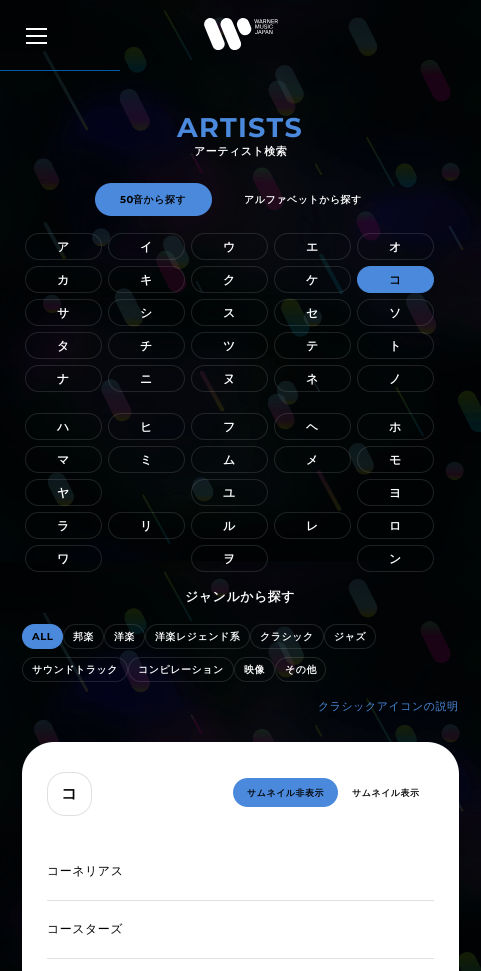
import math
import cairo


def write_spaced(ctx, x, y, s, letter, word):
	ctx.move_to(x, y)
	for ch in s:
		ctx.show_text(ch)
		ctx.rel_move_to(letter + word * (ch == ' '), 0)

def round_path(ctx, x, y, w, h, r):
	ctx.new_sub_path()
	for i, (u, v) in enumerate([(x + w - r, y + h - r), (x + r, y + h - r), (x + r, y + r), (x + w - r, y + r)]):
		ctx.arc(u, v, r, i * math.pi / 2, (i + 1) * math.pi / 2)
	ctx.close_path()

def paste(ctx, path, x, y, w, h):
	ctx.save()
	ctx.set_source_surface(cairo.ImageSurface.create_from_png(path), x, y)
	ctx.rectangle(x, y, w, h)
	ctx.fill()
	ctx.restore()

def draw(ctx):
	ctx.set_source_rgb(1, 1, 1)
	ctx.paint()
	paste(ctx, 'media/1.png', 0, 0, 481, 971)
	ctx.set_source_rgb(1, 1, 1)
	ctx.rectangle(26, 28, 21, 2)
	ctx.rectangle(26, 35, 21, 2)
	ctx.rectangle(26, 42, 21, 2)
	ctx.fill()
	paste(ctx, 'media/2.png', 204, 18, 74, 32)
	ctx.set_source_rgb(0, 0.349, 0.655)
	ctx.rectangle(0, 70, 120, 1)
	ctx.fill()
	ctx.select_font_face('Montserrat', cairo.FONT_SLANT_NORMAL, cairo.FONT_WEIGHT_BOLD)
	ctx.set_font_size(27)
	ctx.set_source_rgb(0.29, 0.537, 0.863)
	write_spaced(ctx, 177, 137, 'ARTISTS', 1.25, 0)
	ctx.select_font_face('WenQuanYi Zen Hei', cairo.FONT_SLANT_NORMAL, cairo.FONT_WEIGHT_BOLD)
	ctx.set_font_size(11)
	ctx.set_source_rgb(1, 1, 1)
	write_spaced(ctx, 194, 155, 'アーティスト検索', 0.5, 0)
	ctx.set_source_rgb(0.29, 0.537, 0.863)
	round_path(ctx, 95, 183, 117, 33, 16.5)
	ctx.fill()
	ctx.select_font_face('Montserrat', cairo.FONT_SLANT_NORMAL, cairo.FONT_WEIGHT_BOLD)
	ctx.set_font_size(10)
	ctx.set_source_rgb(0, 0, 0)
	write_spaced(ctx, 120, 203, '50', 0.5, 0)
	ctx.select_font_face('WenQuanYi Zen Hei', cairo.FONT_SLANT_NORMAL, cairo.FONT_WEIGHT_BOLD)
	write_spaced(ctx, 133, 203, '音から探す', 0.5, 0)
	ctx.set_source_rgb(1, 1, 1)
	write_spaced(ctx, 244, 203, 'アルファベットから探す', 0.5, 0)
	round_path(ctx, 25.5, 233.5, 76, 26, 13)
	ctx.set_source_rgba(1, 1, 1, 0.12)
	ctx.set_line_width(1)
	ctx.stroke()
	ctx.set_font_size(12)
	ctx.set_source_rgb(1, 1, 1)
	write_spaced(ctx, 57, 251, 'ア', 0.5, 0)
	round_path(ctx, 108.5, 233.5, 76, 26, 13)
	ctx.set_source_rgba(1, 1, 1, 0.12)
	ctx.stroke()
	ctx.set_source_rgb(1, 1, 1)
	write_spaced(ctx, 140, 251, 'イ', 0.5, 0)
	round_path(ctx, 191.5, 233.5, 76, 26, 13)
	ctx.set_source_rgba(1, 1, 1, 0.12)
	ctx.stroke()
	ctx.set_source_rgb(1, 1, 1)
	write_spaced(ctx, 223, 251, 'ウ', 0.5, 0)
	round_path(ctx, 274.5, 233.5, 76, 26, 13)
	ctx.set_source_rgba(1, 1, 1, 0.12)
	ctx.stroke()
	ctx.set_source_rgb(1, 1, 1)
	write_spaced(ctx, 306, 251, 'エ', 0.5, 0)
	round_path(ctx, 357.5, 233.5, 76, 26, 13)
	ctx.set_source_rgba(1, 1, 1, 0.12)
	ctx.stroke()
	ctx.set_source_rgb(1, 1, 1)
	write_spaced(ctx, 389, 251, 'オ', 0.5, 0)
	round_path(ctx, 25.5, 266.5, 76, 26, 13)
	ctx.set_source_rgba(1, 1, 1, 0.12)
	ctx.stroke()
	ctx.set_source_rgb(1, 1, 1)
	write_spaced(ctx, 57, 284, 'カ', 0.5, 0)
	round_path(ctx, 108.5, 266.5, 76, 26, 13)
	ctx.set_source_rgba(1, 1, 1, 0.12)
	ctx.stroke()
	ctx.set_source_rgb(1, 1, 1)
	write_spaced(ctx, 140, 284, 'キ', 0.5, 0)
	round_path(ctx, 191.5, 266.5, 76, 26, 13)
	ctx.set_source_rgba(1, 1, 1, 0.12)
	ctx.stroke()
	ctx.set_source_rgb(1, 1, 1)
	write_spaced(ctx, 223, 284, 'ク', 0.5, 0)
	round_path(ctx, 274.5, 266.5, 76, 26, 13)
	ctx.set_source_rgba(1, 1, 1, 0.12)
	ctx.stroke()
	ctx.set_source_rgb(1, 1, 1)
	write_spaced(ctx, 306, 284, 'ケ', 0.5, 0)
	ctx.set_source_rgb(0.29, 0.537, 0.863)
	round_path(ctx, 357.5, 266.5, 76, 26, 13)
	ctx.fill_preserve()
	ctx.stroke()
	ctx.set_source_rgb(0, 0, 0)
	write_spaced(ctx, 389, 284, 'コ', 0.5, 0)
	round_path(ctx, 25.5, 299.5, 76, 26, 13)
	ctx.set_source_rgba(1, 1, 1, 0.12)
	ctx.stroke()
	ctx.set_source_rgb(1, 1, 1)
	write_spaced(ctx, 57, 317, 'サ', 0.5, 0)
	round_path(ctx, 108.5, 299.5, 76, 26, 13)
	ctx.set_source_rgba(1, 1, 1, 0.12)
	ctx.stroke()
	ctx.set_source_rgb(1, 1, 1)
	write_spaced(ctx, 140, 317, 'シ', 0.5, 0)
	round_path(ctx, 191.5, 299.5, 76, 26, 13)
	ctx.set_source_rgba(1, 1, 1, 0.12)
	ctx.stroke()
	ctx.set_source_rgb(1, 1, 1)
	write_spaced(ctx, 223, 317, 'ス', 0.5, 0)
	round_path(ctx, 274.5, 299.5, 76, 26, 13)
	ctx.set_source_rgba(1, 1, 1, 0.12)
	ctx.stroke()
	ctx.set_source_rgb(1, 1, 1)
	write_spaced(ctx, 306, 317, 'セ', 0.5, 0)
	round_path(ctx, 357.5, 299.5, 76, 26, 13)
	ctx.set_source_rgba(1, 1, 1, 0.12)
	ctx.stroke()
	ctx.set_source_rgb(1, 1, 1)
	write_spaced(ctx, 389, 317, 'ソ', 0.5, 0)
	round_path(ctx, 25.5, 332.5, 76, 26, 13)
	ctx.set_source_rgba(1, 1, 1, 0.12)
	ctx.stroke()
	ctx.set_source_rgb(1, 1, 1)
	write_spaced(ctx, 57, 350, 'タ', 0.5, 0)
	round_path(ctx, 108.5, 332.5, 76, 26, 13)
	ctx.set_source_rgba(1, 1, 1, 0.12)
	ctx.stroke()
	ctx.set_source_rgb(1, 1, 1)
	write_spaced(ctx, 140, 350, 'チ', 0.5, 0)
	round_path(ctx, 191.5, 332.5, 76, 26, 13)
	ctx.set_source_rgba(1, 1, 1, 0.12)
	ctx.stroke()
	ctx.set_source_rgb(1, 1, 1)
	write_spaced(ctx, 223, 350, 'ツ', 0.5, 0)
	round_path(ctx, 274.5, 332.5, 76, 26, 13)
	ctx.set_source_rgba(1, 1, 1, 0.12)
	ctx.stroke()
	ctx.set_source_rgb(1, 1, 1)
	write_spaced(ctx, 306, 350, 'テ', 0.5, 0)
	round_path(ctx, 357.5, 332.5, 76, 26, 13)
	ctx.set_source_rgba(1, 1, 1, 0.12)
	ctx.stroke()
	ctx.set_source_rgb(1, 1, 1)
	write_spaced(ctx, 389, 350, 'ト', 0.5, 0)
	round_path(ctx, 25.5, 365.5, 76, 26, 13)
	ctx.set_source_rgba(1, 1, 1, 0.12)
	ctx.stroke()
	ctx.set_source_rgb(1, 1, 1)
	write_spaced(ctx, 57, 383, 'ナ', 0.5, 0)
	round_path(ctx, 108.5, 365.5, 76, 26, 13)
	ctx.set_source_rgba(1, 1, 1, 0.12)
	ctx.stroke()
	ctx.set_source_rgb(1, 1, 1)
	write_spaced(ctx, 140, 383, 'ニ', 0.5, 0)
	round_path(ctx, 191.5, 365.5, 76, 26, 13)
	ctx.set_source_rgba(1, 1, 1, 0.12)
	ctx.stroke()
	ctx.set_source_rgb(1, 1, 1)
	write_spaced(ctx, 223, 383, 'ヌ', 0.5, 0)
	round_path(ctx, 274.5, 365.5, 76, 26, 13)
	ctx.set_source_rgba(1, 1, 1, 0.12)
	ctx.stroke()
	ctx.set_source_rgb(1, 1, 1)
	write_spaced(ctx, 306, 383, 'ネ', 0.5, 0)
	round_path(ctx, 357.5, 365.5, 76, 26, 13)
	ctx.set_source_rgba(1, 1, 1, 0.12)
	ctx.stroke()
	ctx.set_source_rgb(1, 1, 1)
	write_spaced(ctx, 389, 383, 'ノ', 0.5, 0)
	round_path(ctx, 25.5, 413.5, 76, 26, 13)
	ctx.set_source_rgba(1, 1, 1, 0.12)
	ctx.stroke()
	ctx.set_source_rgb(1, 1, 1)
	write_spaced(ctx, 57, 431, 'ハ', 0.5, 0)
	round_path(ctx, 108.5, 413.5, 76, 26, 13)
	ctx.set_source_rgba(1, 1, 1, 0.12)
	ctx.stroke()
	ctx.set_source_rgb(1, 1, 1)
	write_spaced(ctx, 140, 431, 'ヒ', 0.5, 0)
	round_path(ctx, 191.5, 413.5, 76, 26, 13)
	ctx.set_source_rgba(1, 1, 1, 0.12)
	ctx.stroke()
	ctx.set_source_rgb(1, 1, 1)
	write_spaced(ctx, 223, 431, 'フ', 0.5, 0)
	round_path(ctx, 274.5, 413.5, 76, 26, 13)
	ctx.set_source_rgba(1, 1, 1, 0.12)
	ctx.stroke()
	ctx.set_source_rgb(1, 1, 1)
	write_spaced(ctx, 306, 431, 'ヘ', 0.5, 0)
	round_path(ctx, 357.5, 413.5, 76, 26, 13)
	ctx.set_source_rgba(1, 1, 1, 0.12)
	ctx.stroke()
	ctx.set_source_rgb(1, 1, 1)
	write_spaced(ctx, 389, 431, 'ホ', 0.5, 0)
	round_path(ctx, 25.5, 446.5, 76, 26, 13)
	ctx.set_source_rgba(1, 1, 1, 0.12)
	ctx.stroke()
	ctx.set_source_rgb(1, 1, 1)
	write_spaced(ctx, 57, 464, 'マ', 0.5, 0)
	round_path(ctx, 108.5, 446.5, 76, 26, 13)
	ctx.set_source_rgba(1, 1, 1, 0.12)
	ctx.stroke()
	ctx.set_source_rgb(1, 1, 1)
	write_spaced(ctx, 140, 464, 'ミ', 0.5, 0)
	round_path(ctx, 191.5, 446.5, 76, 26, 13)
	ctx.set_source_rgba(1, 1, 1, 0.12)
	ctx.stroke()
	ctx.set_source_rgb(1, 1, 1)
	write_spaced(ctx, 223, 464, 'ム', 0.5, 0)
	round_path(ctx, 274.5, 446.5, 76, 26, 13)
	ctx.set_source_rgba(1, 1, 1, 0.12)
	ctx.stroke()
	ctx.set_source_rgb(1, 1, 1)
	write_spaced(ctx, 306, 464, 'メ', 0.5, 0)
	round_path(ctx, 357.5, 446.5, 76, 26, 13)
	ctx.set_source_rgba(1, 1, 1, 0.12)
	ctx.stroke()
	ctx.set_source_rgb(1, 1, 1)
	write_spaced(ctx, 389, 464, 'モ', 0.5, 0)
	round_path(ctx, 25.5, 479.5, 76, 26, 13)
	ctx.set_source_rgba(1, 1, 1, 0.12)
	ctx.stroke()
	ctx.set_source_rgb(1, 1, 1)
	write_spaced(ctx, 57, 497, 'ヤ', 0.5, 0)
	round_path(ctx, 191.5, 479.5, 76, 26, 13)
	ctx.set_source_rgba(1, 1, 1, 0.12)
	ctx.stroke()
	ctx.set_source_rgb(1, 1, 1)
	write_spaced(ctx, 223, 497, 'ユ', 0.5, 0)
	round_path(ctx, 357.5, 479.5, 76, 26, 13)
	ctx.set_source_rgb(0.122, 0.129, 0.133)
	ctx.stroke()
	ctx.set_source_rgb(1, 1, 1)
	write_spaced(ctx, 389, 497, 'ヨ', 0.5, 0)
	round_path(ctx, 25.5, 512.5, 76, 26, 13)
	ctx.set_source_rgb(0.122, 0.133, 0.137)
	ctx.stroke()
	ctx.set_source_rgb(1, 1, 1)
	write_spaced(ctx, 57, 530, 'ラ', 0.5, 0)
	round_path(ctx, 108.5, 512.5, 76, 26, 13)
	ctx.set_source_rgba(1, 1, 1, 0.12)
	ctx.stroke()
	ctx.set_source_rgb(1, 1, 1)
	write_spaced(ctx, 140, 530, 'リ', 0.5, 0)
	round_path(ctx, 191.5, 512.5, 76, 26, 13)
	ctx.set_source_rgba(1, 1, 1, 0.12)
	ctx.stroke()
	ctx.set_source_rgb(1, 1, 1)
	write_spaced(ctx, 223, 530, 'ル', 0.5, 0)
	round_path(ctx, 274.5, 512.5, 76, 26, 13)
	ctx.set_source_rgba(1, 1, 1, 0.12)
	ctx.stroke()
	ctx.set_source_rgb(1, 1, 1)
	write_spaced(ctx, 306, 530, 'レ', 0.5, 0)
	round_path(ctx, 357.5, 512.5, 76, 26, 13)
	ctx.set_source_rgb(0.122, 0.129, 0.133)
	ctx.stroke()
	ctx.set_source_rgb(1, 1, 1)
	write_spaced(ctx, 389, 530, 'ロ', 0.5, 0)
	round_path(ctx, 25.5, 545.5, 76, 26, 13)
	ctx.set_source_rgba(1, 1, 1, 0.12)
	ctx.stroke()
	ctx.set_source_rgb(1, 1, 1)
	write_spaced(ctx, 57, 563, 'ワ', 0.5, 0)
	round_path(ctx, 191.5, 545.5, 76, 26, 13)
	ctx.set_source_rgba(1, 1, 1, 0.12)
	ctx.stroke()
	ctx.set_source_rgb(1, 1, 1)
	write_spaced(ctx, 223, 563, 'ヲ', 0.5, 0)
	round_path(ctx, 357.5, 545.5, 76, 26, 13)
	ctx.set_source_rgba(1, 1, 1, 0.12)
	ctx.stroke()
	ctx.set_source_rgb(1, 1, 1)
	write_spaced(ctx, 389, 563, 'ン', 0.5, 0)
	ctx.set_font_size(13)
	write_spaced(ctx, 185, 601, 'ジャンルから探す', 0.5, 0)
	ctx.set_source_rgb(0.29, 0.537, 0.863)
	round_path(ctx, 22.5, 624.5, 40, 24, 12)
	ctx.fill_preserve()
	ctx.stroke()
	ctx.select_font_face('Montserrat', cairo.FONT_SLANT_NORMAL, cairo.FONT_WEIGHT_BOLD)
	ctx.set_font_size(10)
	ctx.set_source_rgb(0, 0, 0)
	write_spaced(ctx, 32, 640, 'ALL', 0.5, 0)
	round_path(ctx, 63.5, 624.5, 40, 24, 12)
	ctx.set_source_rgba(1, 1, 1, 0.12)
	ctx.stroke()
	ctx.select_font_face('WenQuanYi Zen Hei', cairo.FONT_SLANT_NORMAL, cairo.FONT_WEIGHT_BOLD)
	ctx.set_source_rgb(1, 1, 1)
	write_spaced(ctx, 73, 640, '邦楽', 0.5, 0)
	round_path(ctx, 104.5, 624.5, 40, 24, 12)
	ctx.set_source_rgba(1, 1, 1, 0.12)
	ctx.stroke()
	ctx.set_source_rgb(1, 1, 1)
	write_spaced(ctx, 114, 640, '洋楽', 0.5, 0)
	round_path(ctx, 145.5, 624.5, 104, 24, 12)
	ctx.set_source_rgba(1, 1, 1, 0.12)
	ctx.stroke()
	ctx.set_source_rgb(1, 1, 1)
	write_spaced(ctx, 155, 640, '洋楽レジェンド系', 0.5, 0)
	round_path(ctx, 250.5, 624.5, 73, 24, 12)
	ctx.set_source_rgba(1, 1, 1, 0.12)
	ctx.stroke()
	ctx.set_source_rgb(1, 1, 1)
	write_spaced(ctx, 260, 640, 'クラシック', 0.5, 0)
	round_path(ctx, 324.5, 624.5, 51, 24, 12)
	ctx.set_source_rgb(0.122, 0.133, 0.141)
	ctx.stroke()
	ctx.set_source_rgb(1, 1, 1)
	write_spaced(ctx, 334, 640, 'ジャズ', 0.5, 0)
	round_path(ctx, 22.5, 657.5, 105, 24, 12)
	ctx.set_source_rgba(1, 1, 1, 0.12)
	ctx.stroke()
	ctx.set_source_rgb(1, 1, 1)
	write_spaced(ctx, 32, 673, 'サウンドトラック', 0.5, 0)
	round_path(ctx, 128.5, 657.5, 105, 24, 12)
	ctx.set_source_rgba(1, 1, 1, 0.12)
	ctx.stroke()
	ctx.set_source_rgb(1, 1, 1)
	write_spaced(ctx, 138, 673, 'コンピレーション', 0.5, 0)
	round_path(ctx, 234.5, 657.5, 40, 24, 12)
	ctx.set_source_rgba(1, 1, 1, 0.12)
	ctx.stroke()
	ctx.set_source_rgb(1, 1, 1)
	write_spaced(ctx, 244, 673, '映像', 0.5, 0)
	round_path(ctx, 275.5, 657.5, 50, 24, 12)
	ctx.set_source_rgba(1, 1, 1, 0.12)
	ctx.stroke()
	ctx.set_source_rgb(1, 1, 1)
	write_spaced(ctx, 285, 673, 'その他', 0.5, 0)
	ctx.select_font_face('WenQuanYi Zen Hei Medium')
	ctx.set_font_size(11)
	ctx.set_source_rgb(0.29, 0.537, 0.863)
	write_spaced(ctx, 318, 710, 'クラシックアイコンの説明', 0.5, 0)
	ctx.set_source_rgb(1, 1, 1)
	round_path(ctx, 22, 742, 437, 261, 32)
	ctx.fill()
	round_path(ctx, 47.5, 772.5, 44, 43, 17.5)
	ctx.set_source_rgb(0.878, 0.878, 0.878)
	ctx.stroke()
	ctx.select_font_face('WenQuanYi Zen Hei', cairo.FONT_SLANT_NORMAL, cairo.FONT_WEIGHT_BOLD)
	ctx.set_font_size(16)
	ctx.set_source_rgb(0, 0, 0)
	write_spaced(ctx, 61, 799, 'コ', 0.5, 0)
	ctx.set_source_rgb(0.878, 0.878, 0.878)
	ctx.rectangle(47, 900, 387, 1)
	ctx.fill()
	ctx.select_font_face('WenQuanYi Zen Hei Medium')
	ctx.set_font_size(12)
	ctx.set_source_rgb(0, 0, 0)
	write_spaced(ctx, 47, 875, 'コーネリアス', 0.5, 0)
	ctx.set_source_rgb(0.878, 0.878, 0.878)
	ctx.rectangle(47, 958, 387, 1)
	ctx.fill()
	ctx.set_source_rgb(0, 0, 0)
	write_spaced(ctx, 47, 933, 'コースターズ', 0.5, 0)
	ctx.set_source_rgb(0.29, 0.537, 0.863)
	round_path(ctx, 233, 778, 105, 29, 14.5)
	ctx.fill()
	ctx.select_font_face('WenQuanYi Zen Hei', cairo.FONT_SLANT_NORMAL, cairo.FONT_WEIGHT_BOLD)
	ctx.set_font_size(9)
	ctx.set_source_rgb(0, 0, 0)
	write_spaced(ctx, 247, 796, 'サムネイル非表示', 0.5, 0)
	write_spaced(ctx, 352, 796, 'サムネイル表示', 0.5, 0)


surface = cairo.ImageSurface(cairo.FORMAT_RGB24, 481, 971)
ctx = cairo.Context(surface)
options = cairo.FontOptions()
options.set_hint_metrics(cairo.HINT_METRICS_OFF)
options.set_hint_style(cairo.HINT_STYLE_NONE)
ctx.set_font_options(options)
ctx.set_miter_limit(4)
draw(ctx)
surface.write_to_png('image.png')
